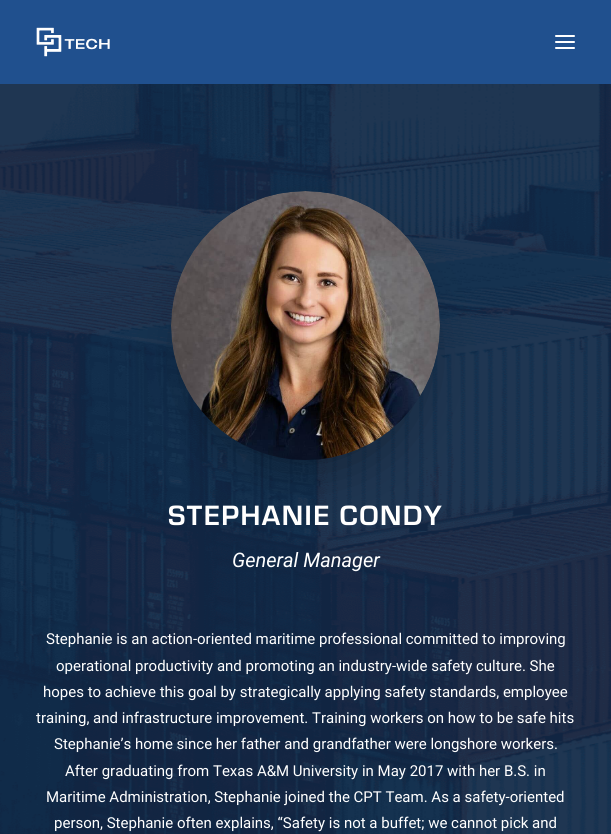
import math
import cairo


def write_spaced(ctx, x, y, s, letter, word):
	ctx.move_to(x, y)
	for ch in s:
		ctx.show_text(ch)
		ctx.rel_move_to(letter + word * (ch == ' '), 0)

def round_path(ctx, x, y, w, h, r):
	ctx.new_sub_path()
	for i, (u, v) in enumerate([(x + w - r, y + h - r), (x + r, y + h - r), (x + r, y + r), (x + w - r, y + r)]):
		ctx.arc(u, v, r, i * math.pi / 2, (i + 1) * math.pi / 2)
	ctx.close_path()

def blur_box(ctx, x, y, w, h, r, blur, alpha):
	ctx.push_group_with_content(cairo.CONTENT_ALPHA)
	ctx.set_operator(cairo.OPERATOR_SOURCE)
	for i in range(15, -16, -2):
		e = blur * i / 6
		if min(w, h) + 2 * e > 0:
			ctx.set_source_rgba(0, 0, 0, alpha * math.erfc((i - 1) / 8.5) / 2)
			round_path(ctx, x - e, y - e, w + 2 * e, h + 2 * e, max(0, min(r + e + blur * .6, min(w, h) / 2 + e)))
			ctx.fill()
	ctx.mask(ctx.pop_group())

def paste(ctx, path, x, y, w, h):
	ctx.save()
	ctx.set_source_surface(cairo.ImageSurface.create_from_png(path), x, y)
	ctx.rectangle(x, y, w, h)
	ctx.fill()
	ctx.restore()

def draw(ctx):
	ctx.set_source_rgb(1, 1, 1)
	ctx.paint()
	ctx.set_source_rgb(0.125, 0.314, 0.557)
	ctx.rectangle(0, 0, 611, 84)
	ctx.fill()
	paste(ctx, 'media/1.png', 36, 27, 74, 30)
	ctx.set_source_rgb(1, 1, 1)
	round_path(ctx, 555, 41, 20, 2, 1)
	ctx.fill()
	round_path(ctx, 555, 35, 20, 2, 1)
	ctx.fill()
	round_path(ctx, 555, 47, 20, 2, 1)
	ctx.fill()
	paste(ctx, 'media/2.png', 0, 84, 611, 750)
	ctx.set_source_rgb(0, 0, 0)
	blur_box(ctx, 201, 251, 209, 209, 104.5, 30, 0.45)
	paste(ctx, 'media/3.png', 171, 191, 269, 269)
	ctx.select_font_face('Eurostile', cairo.FONT_SLANT_NORMAL, cairo.FONT_WEIGHT_BOLD)
	ctx.set_font_size(29)
	ctx.set_source_rgb(1, 1, 1)
	write_spaced(ctx, 168, 525, 'STEPHANIE CONDY', 1.5, 0)
	ctx.select_font_face('Roboto', cairo.FONT_SLANT_ITALIC)
	ctx.set_font_size(20)
	ctx.move_to(232, 567)
	ctx.show_text('General Manager')
	ctx.select_font_face('Roboto')
	ctx.set_font_size(15)
	for x, y, s in [
		(46, 644, 'Stephanie is an action-oriented maritime professional committed to improving'),
		(56, 671, 'operational productivity and promoting an industry-wide safety culture. She'),
		(43, 697, 'hopes to achieve this goal by strategically applying safety standards, employee'),
		(36, 723, 'training, and infrastructure improvement. Training workers on how to be safe hits'),
		(54, 749, 'Stephanie’s home since her father and grandfather were longshore workers.'),
		(65, 776, 'After graduating from Texas A&M University in May 2017 with her B.S. in'),
		(46, 802, 'Maritime Administration, Stephanie joined the CPT Team. As a safety-oriented'),
		(54, 828, 'person, Stephanie often explains, “Safety is not a buffet; we cannot pick and'),
	]:
		ctx.move_to(x, y)
		ctx.show_text(s)


surface = cairo.ImageSurface(cairo.FORMAT_RGB24, 611, 834)
ctx = cairo.Context(surface)
options = cairo.FontOptions()
options.set_hint_metrics(cairo.HINT_METRICS_OFF)
options.set_hint_style(cairo.HINT_STYLE_NONE)
ctx.set_font_options(options)
ctx.set_miter_limit(4)
draw(ctx)
surface.write_to_png('image.png')
